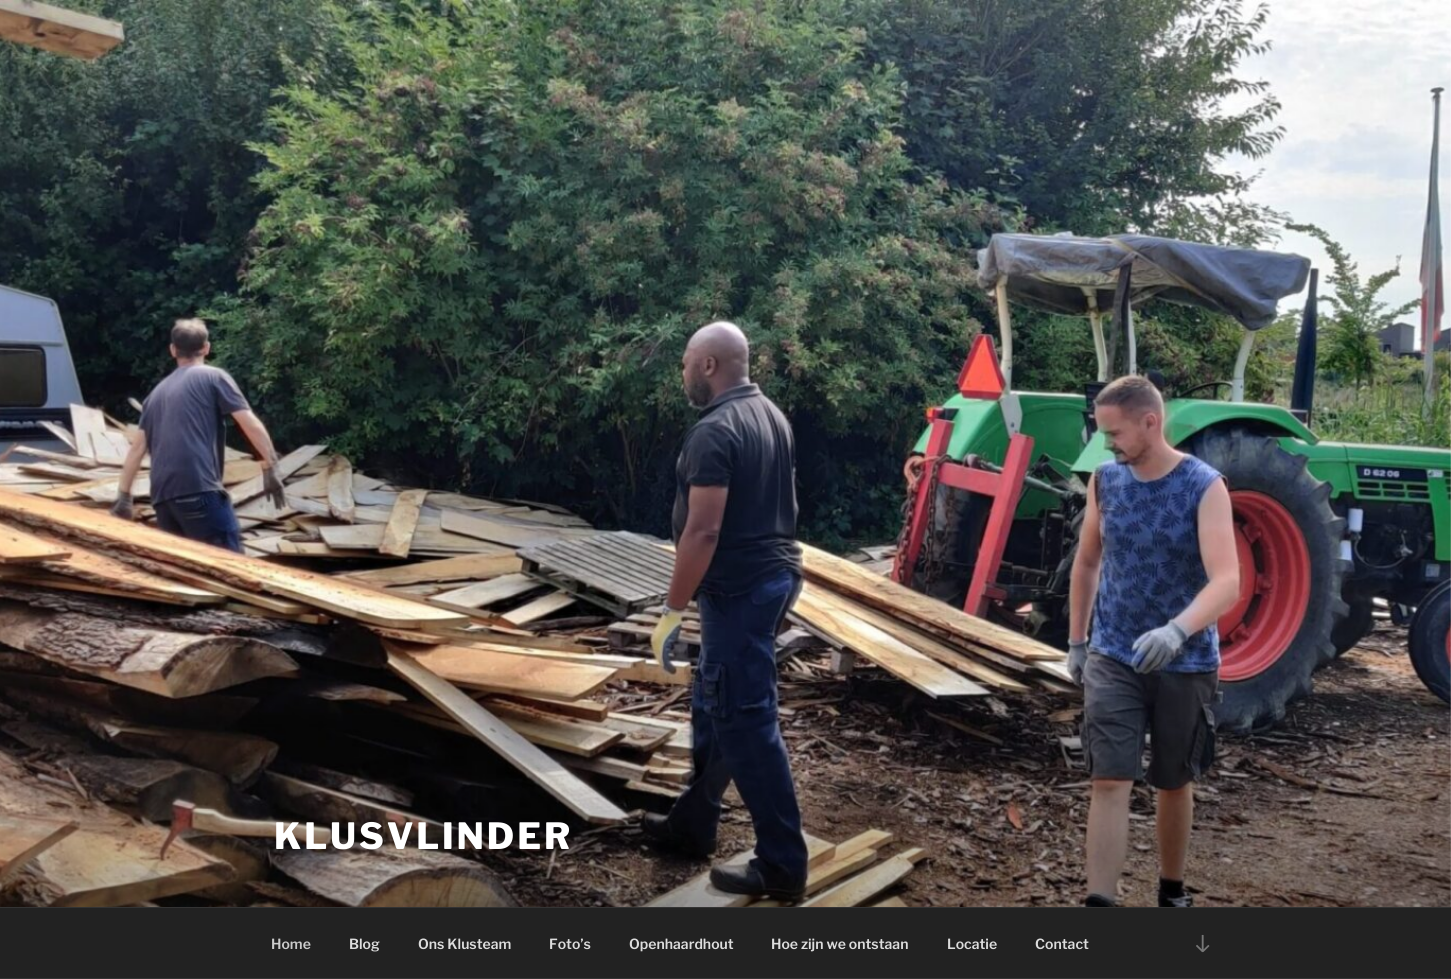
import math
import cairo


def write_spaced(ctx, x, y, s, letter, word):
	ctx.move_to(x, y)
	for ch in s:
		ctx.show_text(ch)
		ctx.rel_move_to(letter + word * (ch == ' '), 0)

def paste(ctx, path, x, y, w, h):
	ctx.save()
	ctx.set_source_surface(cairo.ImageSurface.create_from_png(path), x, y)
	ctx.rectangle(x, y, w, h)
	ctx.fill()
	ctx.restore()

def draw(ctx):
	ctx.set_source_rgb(1, 1, 1)
	ctx.paint()
	paste(ctx, 'media/1.png', 0, 0, 1451, 907)
	gradient = cairo.LinearGradient(726, 656, 726, 979)
	gradient.add_color_stop_rgba(0, 0, 0, 0, 0)
	gradient.add_color_stop_rgba(0.75, 0, 0, 0, 0.3)
	gradient.add_color_stop_rgba(1, 0, 0, 0, 0.3)
	ctx.set_source(gradient)
	ctx.rectangle(0, 673, 1451, 234)
	ctx.fill()
	ctx.select_font_face('Libre Franklin Thin')
	ctx.set_font_size(36)
	ctx.set_source_rgb(1, 1, 1)
	write_spaced(ctx, 274, 849, 'KLUSVLINDER', 2.9, 0)
	ctx.set_source_rgb(0.133, 0.133, 0.133)
	ctx.rectangle(0, 908, 1451, 70)
	ctx.fill()
	ctx.set_source_rgb(0.2, 0.2, 0.2)
	ctx.rectangle(0, 907, 1451, 1)
	ctx.rectangle(0, 978, 1451, 1)
	ctx.fill()
	ctx.select_font_face('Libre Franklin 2 Thin')
	ctx.set_font_size(14)
	ctx.set_source_rgb(0.8, 0.8, 0.8)
	ctx.move_to(271, 949)
	ctx.show_text('Home')
	ctx.set_source_rgb(0.867, 0.867, 0.867)
	for x, y, s in [
		(349, 949, 'Blog'),
		(418, 949, 'Ons Klusteam'),
		(549, 949, 'Foto’s'),
		(629, 949, 'Openhaardhout'),
		(771, 949, 'Hoe zijn we ontstaan'),
		(947, 949, 'Locatie'),
		(1035, 949, 'Contact'),
	]:
		ctx.move_to(x, y)
		ctx.show_text(s)
	paste(ctx, 'media/2.png', 1196, 934, 14, 19)


surface = cairo.ImageSurface(cairo.FORMAT_RGB24, 1451, 979)
ctx = cairo.Context(surface)
options = cairo.FontOptions()
options.set_hint_metrics(cairo.HINT_METRICS_OFF)
options.set_hint_style(cairo.HINT_STYLE_NONE)
ctx.set_font_options(options)
ctx.set_miter_limit(4)
draw(ctx)
surface.write_to_png('image.png')
